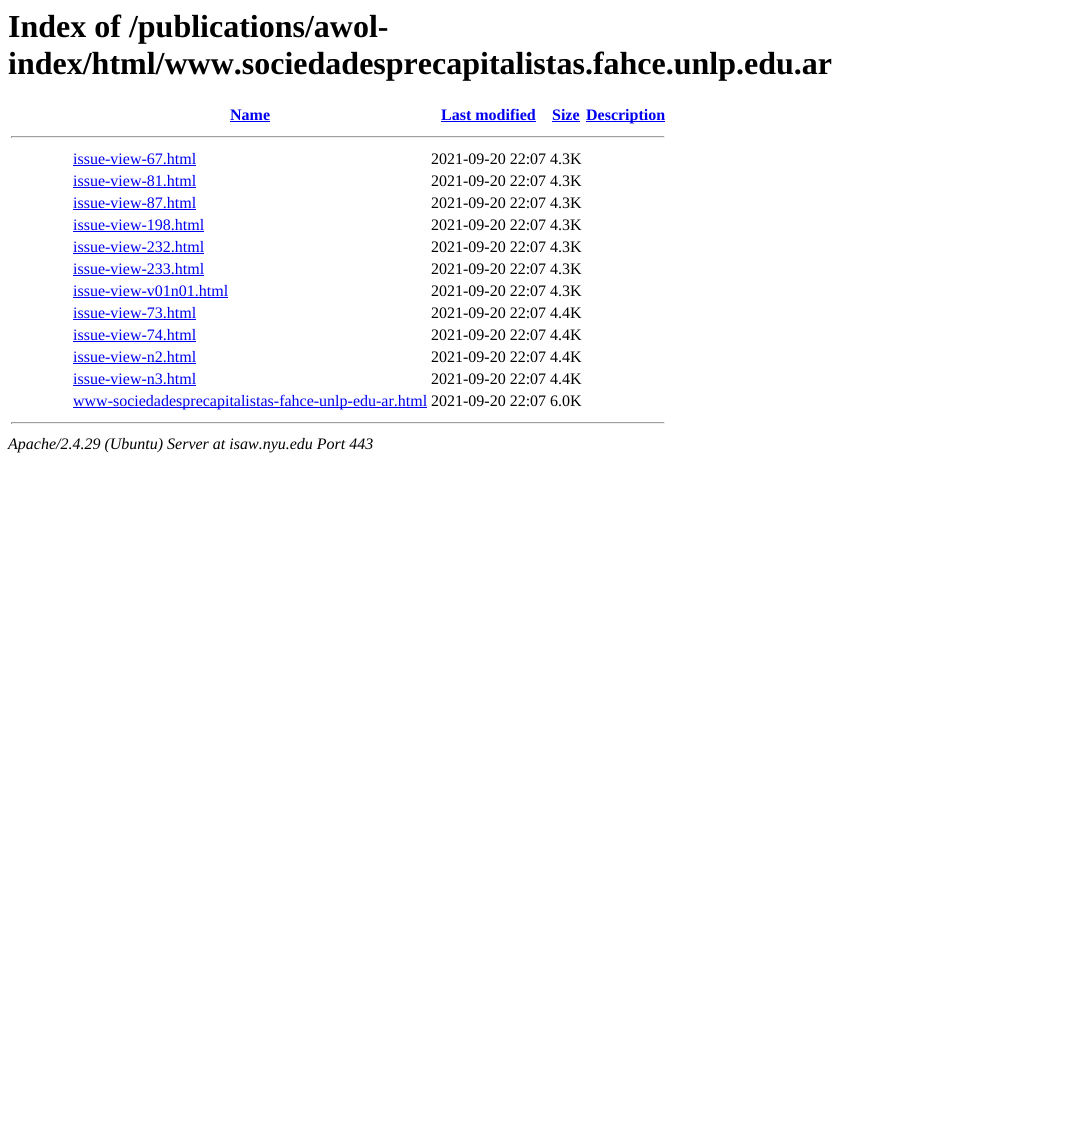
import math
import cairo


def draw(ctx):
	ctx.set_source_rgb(1, 1, 1)
	ctx.paint()
	ctx.select_font_face('Liberation Serif', cairo.FONT_SLANT_NORMAL, cairo.FONT_WEIGHT_BOLD)
	ctx.set_font_size(32)
	ctx.set_source_rgb(0, 0, 0)
	ctx.move_to(8, 37)
	ctx.show_text('Index of /publications/awol-')
	ctx.move_to(8, 74)
	ctx.show_text('index/html/www.sociedadesprecapitalistas.fahce.unlp.edu.ar')
	ctx.set_font_size(16)
	ctx.set_source_rgb(0, 0, 0.933)
	ctx.move_to(230, 120)
	ctx.show_text('Name')
	ctx.rectangle(230, 121, 40, 1)
	ctx.fill()
	ctx.move_to(441, 120)
	ctx.show_text('Last modified')
	ctx.rectangle(441, 121, 95, 1)
	ctx.fill()
	ctx.move_to(552, 120)
	ctx.show_text('Size')
	ctx.rectangle(552, 121, 28, 1)
	ctx.fill()
	ctx.rectangle(586, 121, 79, 1)
	ctx.fill()
	ctx.move_to(586, 120)
	ctx.show_text('Description')
	ctx.set_source_rgb(0.624, 0.624, 0.624)
	ctx.rectangle(11, 136, 654, 1)
	ctx.fill()
	ctx.set_source_rgb(0.933, 0.933, 0.933)
	ctx.rectangle(664, 136, 1, 2)
	ctx.rectangle(11, 137, 654, 1)
	ctx.fill()
	ctx.set_source_rgb(0.624, 0.624, 0.624)
	ctx.rectangle(11, 136, 1, 2)
	ctx.fill()
	ctx.select_font_face('Liberation Serif')
	ctx.set_source_rgb(0, 0, 0.933)
	ctx.move_to(73, 164)
	ctx.show_text('issue-view-67.html')
	ctx.rectangle(73, 165, 123, 1)
	ctx.fill()
	ctx.set_source_rgb(0, 0, 0)
	ctx.move_to(431, 164)
	ctx.show_text('2021-09-20 22:07 4.3K')
	ctx.set_source_rgb(0, 0, 0.933)
	ctx.move_to(73, 186)
	ctx.show_text('issue-view-81.html')
	ctx.rectangle(73, 187, 123, 1)
	ctx.fill()
	ctx.set_source_rgb(0, 0, 0)
	ctx.move_to(431, 186)
	ctx.show_text('2021-09-20 22:07 4.3K')
	ctx.set_source_rgb(0, 0, 0.933)
	ctx.move_to(73, 208)
	ctx.show_text('issue-view-87.html')
	ctx.rectangle(73, 209, 123, 1)
	ctx.fill()
	ctx.set_source_rgb(0, 0, 0)
	ctx.move_to(431, 208)
	ctx.show_text('2021-09-20 22:07 4.3K')
	ctx.set_source_rgb(0, 0, 0.933)
	ctx.move_to(73, 230)
	ctx.show_text('issue-view-198.html')
	ctx.rectangle(73, 231, 131, 1)
	ctx.fill()
	ctx.set_source_rgb(0, 0, 0)
	ctx.move_to(431, 230)
	ctx.show_text('2021-09-20 22:07 4.3K')
	ctx.set_source_rgb(0, 0, 0.933)
	ctx.move_to(73, 252)
	ctx.show_text('issue-view-232.html')
	ctx.rectangle(73, 253, 131, 1)
	ctx.fill()
	ctx.set_source_rgb(0, 0, 0)
	ctx.move_to(431, 252)
	ctx.show_text('2021-09-20 22:07 4.3K')
	ctx.set_source_rgb(0, 0, 0.933)
	ctx.move_to(73, 274)
	ctx.show_text('issue-view-233.html')
	ctx.rectangle(73, 275, 131, 1)
	ctx.fill()
	ctx.set_source_rgb(0, 0, 0)
	ctx.move_to(431, 274)
	ctx.show_text('2021-09-20 22:07 4.3K')
	ctx.set_source_rgb(0, 0, 0.933)
	ctx.move_to(73, 296)
	ctx.show_text('issue-view-v01n01.html')
	ctx.rectangle(73, 297, 155, 1)
	ctx.fill()
	ctx.set_source_rgb(0, 0, 0)
	ctx.move_to(431, 296)
	ctx.show_text('2021-09-20 22:07 4.3K')
	ctx.set_source_rgb(0, 0, 0.933)
	ctx.move_to(73, 318)
	ctx.show_text('issue-view-73.html')
	ctx.rectangle(73, 319, 123, 1)
	ctx.fill()
	ctx.set_source_rgb(0, 0, 0)
	ctx.move_to(431, 318)
	ctx.show_text('2021-09-20 22:07 4.4K')
	ctx.set_source_rgb(0, 0, 0.933)
	ctx.move_to(73, 340)
	ctx.show_text('issue-view-74.html')
	ctx.rectangle(73, 341, 123, 1)
	ctx.fill()
	ctx.set_source_rgb(0, 0, 0)
	ctx.move_to(431, 340)
	ctx.show_text('2021-09-20 22:07 4.4K')
	ctx.set_source_rgb(0, 0, 0.933)
	ctx.move_to(73, 362)
	ctx.show_text('issue-view-n2.html')
	ctx.rectangle(73, 363, 123, 1)
	ctx.fill()
	ctx.set_source_rgb(0, 0, 0)
	ctx.move_to(431, 362)
	ctx.show_text('2021-09-20 22:07 4.4K')
	ctx.set_source_rgb(0, 0, 0.933)
	ctx.move_to(73, 384)
	ctx.show_text('issue-view-n3.html')
	ctx.rectangle(73, 385, 123, 1)
	ctx.fill()
	ctx.set_source_rgb(0, 0, 0)
	ctx.move_to(431, 384)
	ctx.show_text('2021-09-20 22:07 4.4K')
	ctx.set_source_rgb(0, 0, 0.933)
	ctx.rectangle(73, 407, 354, 1)
	ctx.fill()
	ctx.move_to(73, 406)
	ctx.show_text('www-sociedadesprecapitalistas-fahce-unlp-edu-ar.html')
	ctx.set_source_rgb(0, 0, 0)
	ctx.move_to(431, 406)
	ctx.show_text('2021-09-20 22:07 6.0K')
	ctx.set_source_rgb(0.624, 0.624, 0.624)
	ctx.rectangle(11, 422, 654, 1)
	ctx.fill()
	ctx.set_source_rgb(0.933, 0.933, 0.933)
	ctx.rectangle(664, 422, 1, 2)
	ctx.rectangle(11, 423, 654, 1)
	ctx.fill()
	ctx.set_source_rgb(0.624, 0.624, 0.624)
	ctx.rectangle(11, 422, 1, 2)
	ctx.fill()
	ctx.select_font_face('Liberation Serif', cairo.FONT_SLANT_ITALIC)
	ctx.set_source_rgb(0, 0, 0)
	ctx.move_to(8, 449)
	ctx.show_text('Apache/2.4.29 (Ubuntu) Server at isaw.nyu.edu Port 443')


surface = cairo.ImageSurface(cairo.FORMAT_RGB24, 1089, 1125)
ctx = cairo.Context(surface)
options = cairo.FontOptions()
options.set_hint_metrics(cairo.HINT_METRICS_OFF)
options.set_hint_style(cairo.HINT_STYLE_NONE)
ctx.set_font_options(options)
ctx.set_miter_limit(4)
draw(ctx)
surface.write_to_png('image.png')
